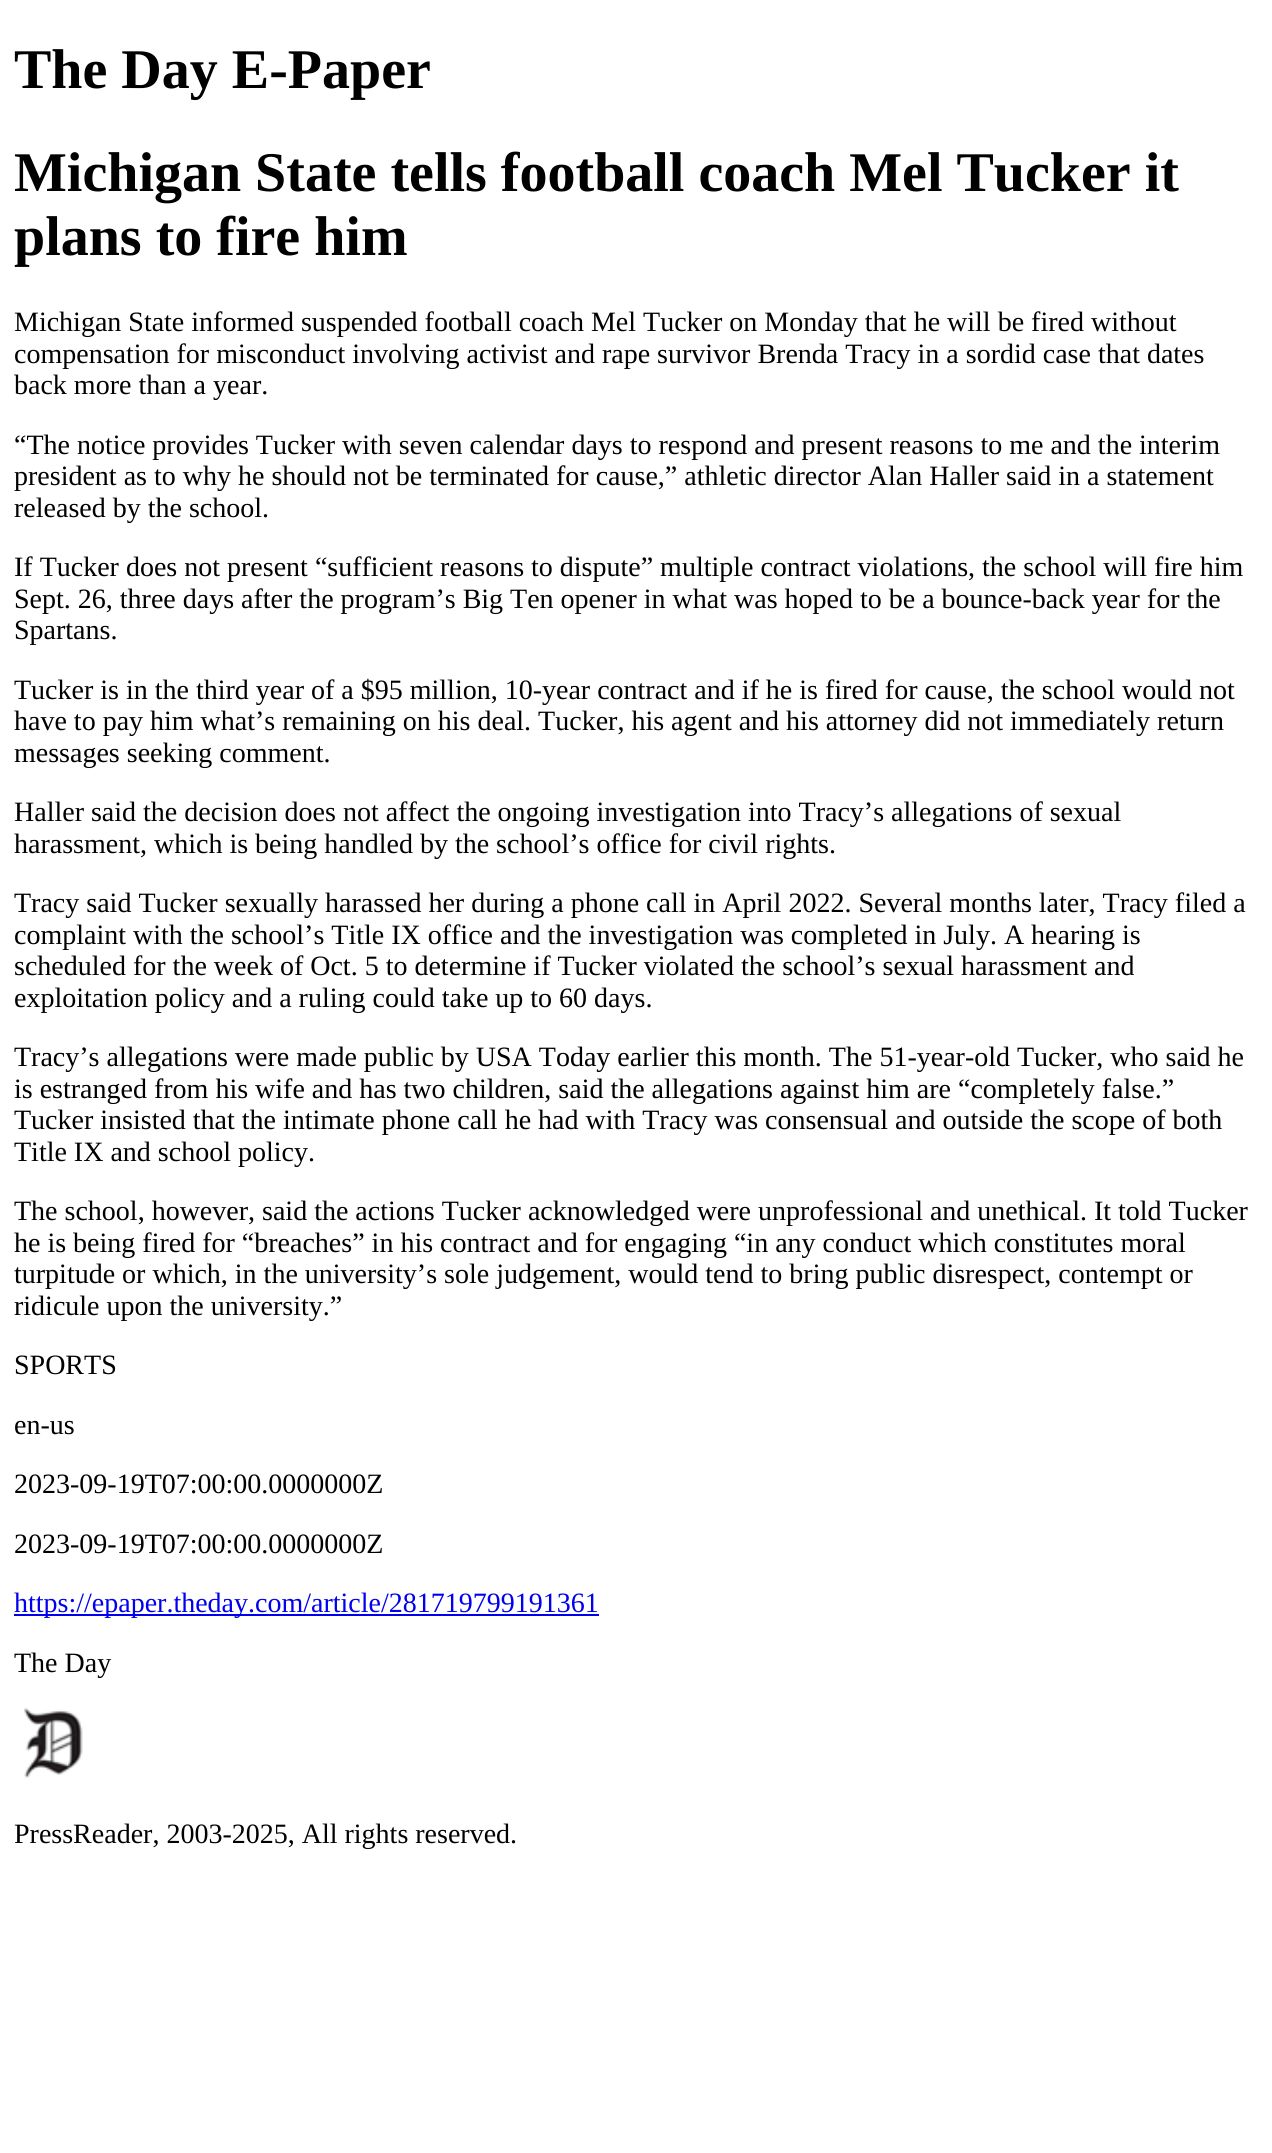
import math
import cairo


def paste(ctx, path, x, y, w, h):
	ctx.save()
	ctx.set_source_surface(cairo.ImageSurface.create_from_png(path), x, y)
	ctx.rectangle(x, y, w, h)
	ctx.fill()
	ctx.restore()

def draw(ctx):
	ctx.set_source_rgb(1, 1, 1)
	ctx.paint()
	ctx.select_font_face('Liberation Serif', cairo.FONT_SLANT_NORMAL, cairo.FONT_WEIGHT_BOLD)
	ctx.set_font_size(56)
	ctx.set_source_rgb(0, 0, 0)
	for x, y, s in [
		(14, 88, 'The Day E-Paper'),
		(14, 191, 'Michigan State tells football coach Mel Tucker it'),
		(14, 255, 'plans to fire him'),
	]:
		ctx.move_to(x, y)
		ctx.show_text(s)
	ctx.select_font_face('Liberation Serif')
	ctx.set_font_size(28)
	for x, y, s in [
		(14, 331, 'Michigan State informed suspended football coach Mel Tucker on Monday that he will be fired without'),
		(14, 363, 'compensation for misconduct involving activist and rape survivor Brenda Tracy in a sordid case that dates'),
		(14, 394, 'back more than a year.'),
		(14, 454, '“The notice provides Tucker with seven calendar days to respond and present reasons to me and the interim'),
		(14, 485, 'president as to why he should not be terminated for cause,” athletic director Alan Haller said in a statement'),
		(14, 517, 'released by the school.'),
		(14, 576, 'If Tucker does not present “sufficient reasons to dispute” multiple contract violations, the school will fire him'),
		(14, 608, 'Sept. 26, three days after the program’s Big Ten opener in what was hoped to be a bounce-back year for the'),
		(14, 639, 'Spartans.'),
		(14, 699, 'Tucker is in the third year of a $95 million, 10-year contract and if he is fired for cause, the school would not'),
		(14, 730, 'have to pay him what’s remaining on his deal. Tucker, his agent and his attorney did not immediately return'),
		(14, 762, 'messages seeking comment.'),
		(14, 821, 'Haller said the decision does not affect the ongoing investigation into Tracy’s allegations of sexual'),
		(14, 853, 'harassment, which is being handled by the school’s office for civil rights.'),
		(14, 912, 'Tracy said Tucker sexually harassed her during a phone call in April 2022. Several months later, Tracy filed a'),
		(14, 944, 'complaint with the school’s Title IX office and the investigation was completed in July. A hearing is'),
		(14, 975, 'scheduled for the week of Oct. 5 to determine if Tucker violated the school’s sexual harassment and'),
		(14, 1007, 'exploitation policy and a ruling could take up to 60 days.'),
		(14, 1066, 'Tracy’s allegations were made public by USA Today earlier this month. The 51-year-old Tucker, who said he'),
		(14, 1098, 'is estranged from his wife and has two children, said the allegations against him are “completely false.”'),
		(14, 1129, 'Tucker insisted that the intimate phone call he had with Tracy was consensual and outside the scope of both'),
		(14, 1161, 'Title IX and school policy.'),
		(14, 1220, 'The school, however, said the actions Tucker acknowledged were unprofessional and unethical. It told Tucker'),
		(14, 1252, 'he is being fired for “breaches” in his contract and for engaging “in any conduct which constitutes moral'),
		(14, 1283, 'turpitude or which, in the university’s sole judgement, would tend to bring public disrespect, contempt or'),
		(14, 1315, 'ridicule upon the university.”'),
		(14, 1374, 'SPORTS'),
		(14, 1434, 'en-us'),
		(14, 1493, '2023-09-19T07:00:00.0000000Z'),
		(14, 1553, '2023-09-19T07:00:00.0000000Z'),
	]:
		ctx.move_to(x, y)
		ctx.show_text(s)
	ctx.set_source_rgb(0, 0, 0.933)
	ctx.rectangle(14, 1614, 585, 2)
	ctx.fill()
	ctx.move_to(14, 1612)
	ctx.show_text('https://epaper.theday.com/article/281719799191361')
	ctx.set_source_rgb(0, 0, 0)
	ctx.move_to(14, 1672)
	ctx.show_text('The Day')
	paste(ctx, 'media/1.png', 24, 1707, 59, 72)
	ctx.move_to(14, 1843)
	ctx.show_text('PressReader, 2003-2025, All rights reserved.')


surface = cairo.ImageSurface(cairo.FORMAT_RGB24, 1272, 2153)
ctx = cairo.Context(surface)
options = cairo.FontOptions()
options.set_hint_metrics(cairo.HINT_METRICS_OFF)
options.set_hint_style(cairo.HINT_STYLE_NONE)
ctx.set_font_options(options)
ctx.set_miter_limit(4)
draw(ctx)
surface.write_to_png('image.png')
